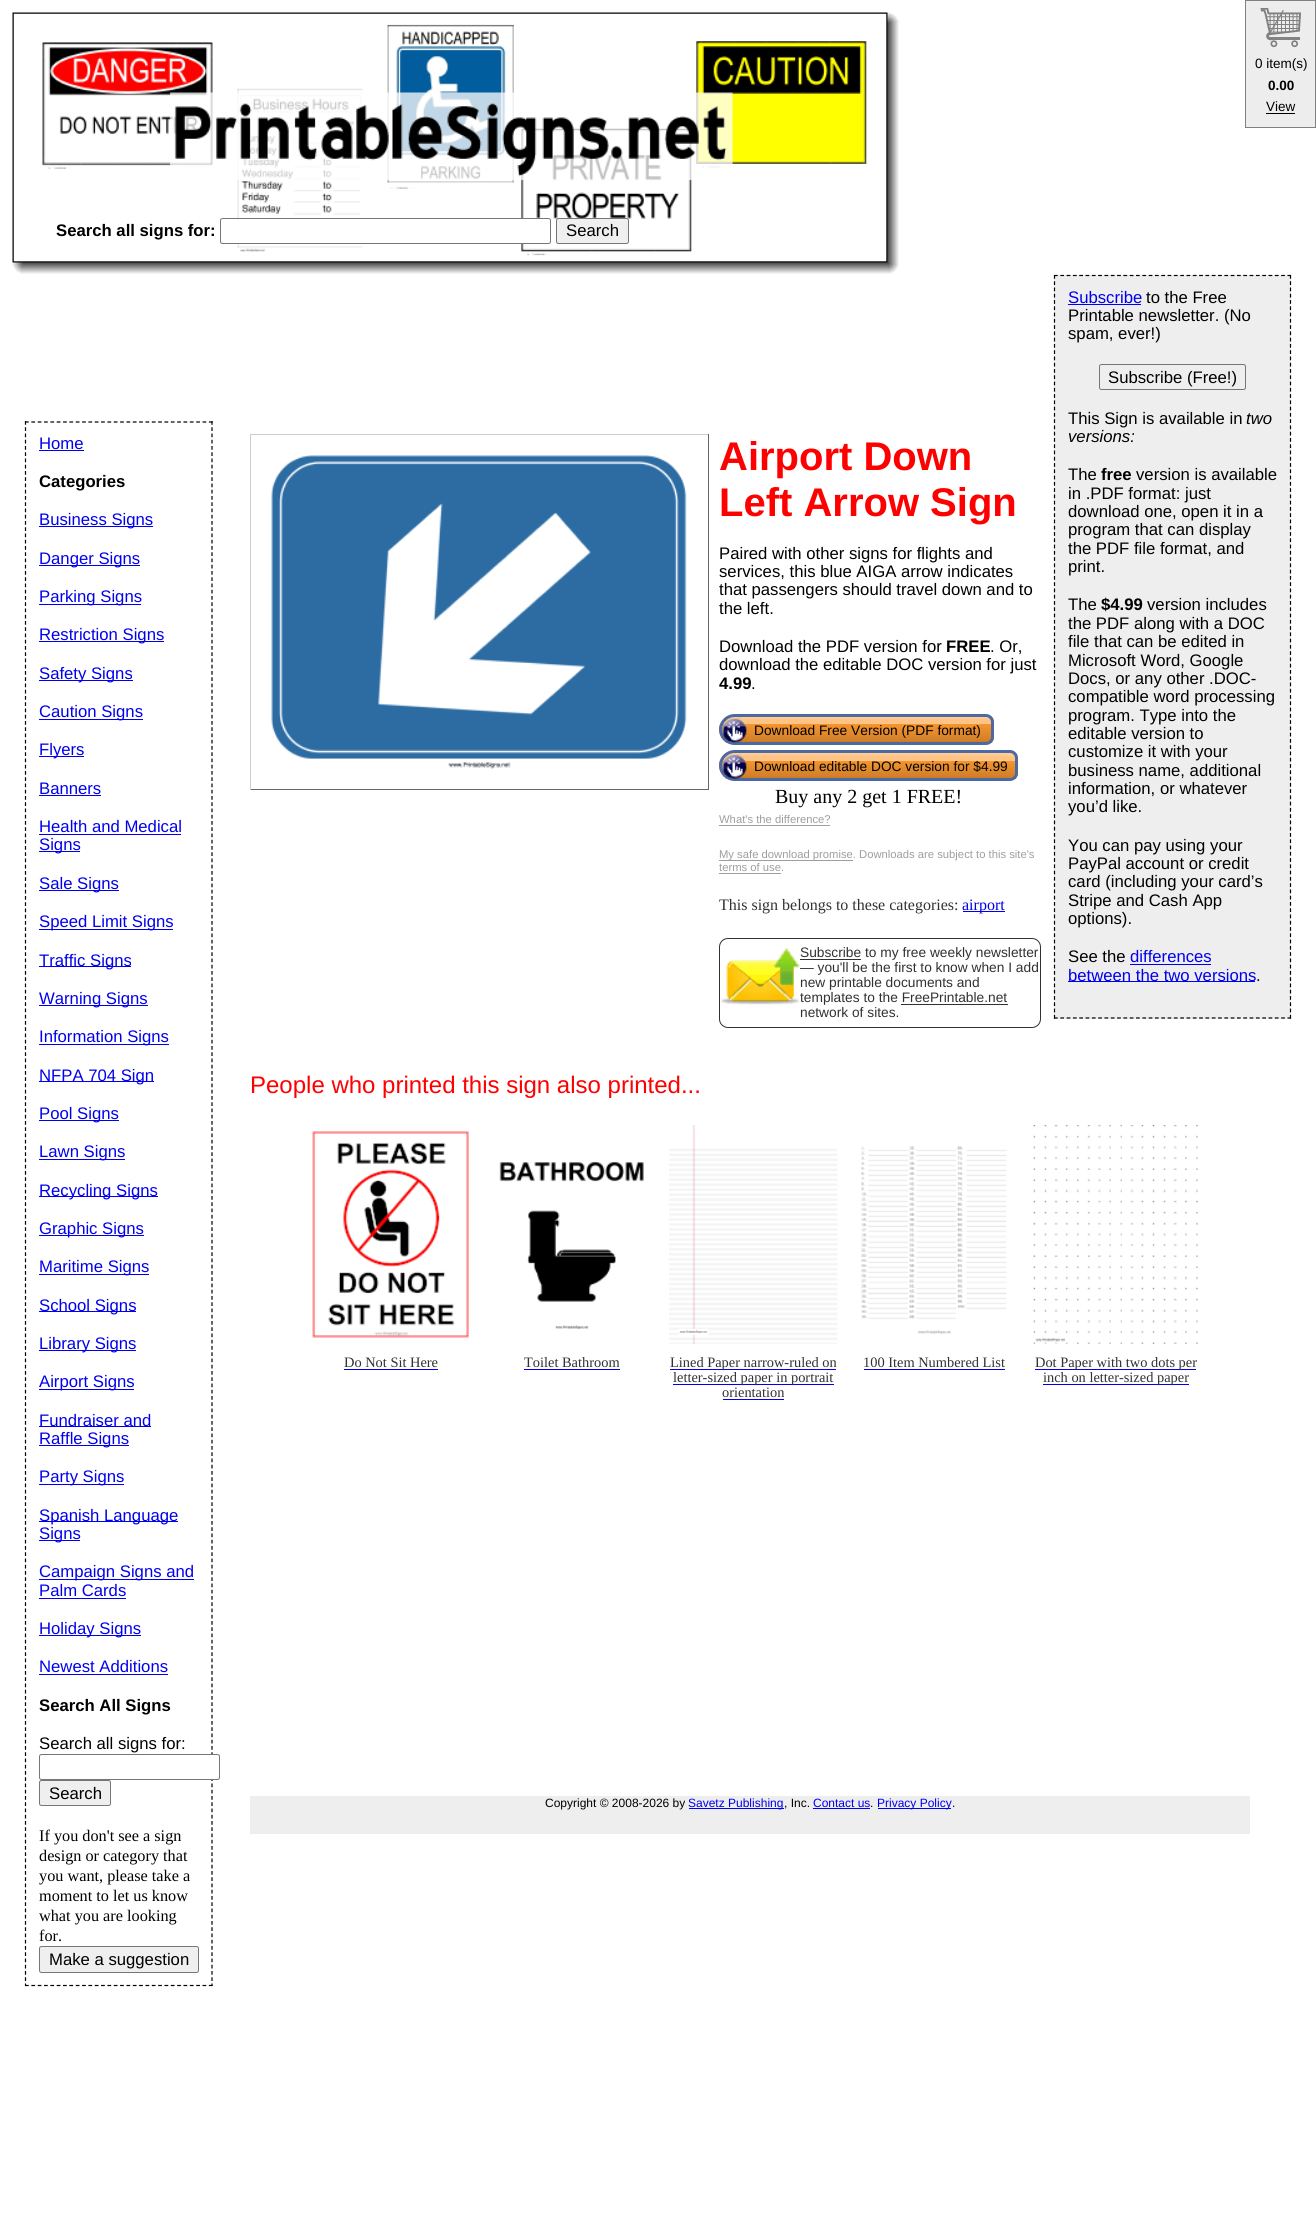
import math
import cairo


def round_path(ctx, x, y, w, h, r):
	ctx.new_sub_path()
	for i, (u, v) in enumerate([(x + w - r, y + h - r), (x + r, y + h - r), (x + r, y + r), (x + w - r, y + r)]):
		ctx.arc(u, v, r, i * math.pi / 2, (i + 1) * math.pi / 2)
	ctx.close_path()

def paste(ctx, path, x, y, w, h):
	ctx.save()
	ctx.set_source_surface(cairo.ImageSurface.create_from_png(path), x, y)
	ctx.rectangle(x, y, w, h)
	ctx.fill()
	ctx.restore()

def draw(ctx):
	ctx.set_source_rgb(1, 1, 1)
	ctx.paint()
	ctx.set_source_rgb(0.929, 0.929, 0.929)
	ctx.rectangle(1245.5, 0.5, 70, 127)
	ctx.fill_preserve()
	ctx.set_source_rgb(0.502, 0.502, 0.502)
	ctx.set_line_width(1)
	ctx.stroke()
	paste(ctx, 'media/1.png', 1260, 8, 41, 40)
	ctx.select_font_face('Liberation Sans')
	ctx.set_font_size(13.5)
	ctx.set_source_rgb(0, 0, 0)
	ctx.move_to(1255, 68)
	ctx.show_text('0 item(s)')
	ctx.select_font_face('Liberation Sans', cairo.FONT_SLANT_NORMAL, cairo.FONT_WEIGHT_BOLD)
	ctx.move_to(1268, 90)
	ctx.show_text('0.00')
	ctx.select_font_face('Liberation Sans')
	ctx.move_to(1266, 111)
	ctx.show_text('View')
	ctx.rectangle(1266, 113, 29, 1)
	ctx.fill()
	paste(ctx, 'media/2.png', 12, 12, 887, 262)
	ctx.select_font_face('Liberation Sans', cairo.FONT_SLANT_NORMAL, cairo.FONT_WEIGHT_BOLD)
	ctx.set_font_size(16.7)
	ctx.move_to(56, 236)
	ctx.show_text('Search all signs for:')
	ctx.set_source_rgb(1, 1, 1)
	round_path(ctx, 220.5, 218.5, 330, 25, 2)
	ctx.fill_preserve()
	ctx.set_source_rgb(0.463, 0.463, 0.463)
	ctx.stroke()
	ctx.set_source_rgb(0.937, 0.937, 0.937)
	round_path(ctx, 556.5, 218.5, 72, 25, 2)
	ctx.fill_preserve()
	ctx.set_source_rgb(0.463, 0.463, 0.463)
	ctx.stroke()
	ctx.select_font_face('Liberation Sans')
	ctx.set_source_rgb(0, 0, 0)
	ctx.move_to(566, 236)
	ctx.show_text('Search')
	ctx.new_path()
	ctx.move_to(25, 422)
	ctx.line_to(212.5, 422)
	ctx.set_line_width(1.2)
	ctx.set_dash([3.75, 2.59])
	ctx.stroke()
	ctx.new_path()
	ctx.move_to(212, 421)
	ctx.line_to(212, 1986)
	ctx.set_dash([3.75, 2.5])
	ctx.stroke()
	ctx.new_path()
	ctx.move_to(25, 1985.5)
	ctx.line_to(212.5, 1985.5)
	ctx.set_dash([3.75, 2.59])
	ctx.stroke()
	ctx.new_path()
	ctx.move_to(25.5, 421)
	ctx.line_to(25.5, 1986)
	ctx.set_dash([3.75, 2.5])
	ctx.stroke()
	ctx.set_source_rgb(0, 0, 0.933)
	ctx.move_to(39, 449)
	ctx.show_text('Home')
	ctx.rectangle(39, 450, 45, 1)
	ctx.fill()
	ctx.select_font_face('Liberation Sans', cairo.FONT_SLANT_NORMAL, cairo.FONT_WEIGHT_BOLD)
	ctx.set_source_rgb(0, 0, 0)
	ctx.move_to(39, 487)
	ctx.show_text('Categories')
	ctx.set_source_rgb(0, 0, 0.933)
	ctx.rectangle(39, 526, 114, 1)
	ctx.fill()
	ctx.select_font_face('Liberation Sans')
	ctx.move_to(39, 525)
	ctx.show_text('Business Signs')
	ctx.rectangle(39, 565, 101, 1)
	ctx.fill()
	ctx.move_to(39, 564)
	ctx.show_text('Danger Signs')
	ctx.rectangle(39, 604, 102, 1)
	ctx.fill()
	ctx.move_to(39, 602)
	ctx.show_text('Parking Signs')
	ctx.rectangle(39, 641, 125, 1)
	ctx.fill()
	ctx.move_to(39, 640)
	ctx.show_text('Restriction Signs')
	ctx.rectangle(39, 680, 94, 1)
	ctx.fill()
	ctx.move_to(39, 679)
	ctx.show_text('Safety Signs')
	ctx.rectangle(39, 719, 104, 1)
	ctx.fill()
	ctx.move_to(39, 717)
	ctx.show_text('Caution Signs')
	ctx.rectangle(39, 756, 45, 1)
	ctx.fill()
	ctx.move_to(39, 755)
	ctx.show_text('Flyers')
	ctx.move_to(39, 794)
	ctx.show_text('Banners')
	ctx.rectangle(39, 795, 62, 1)
	ctx.fill()
	ctx.move_to(39, 832)
	ctx.show_text('Health and Medical')
	ctx.rectangle(39, 834, 142, 1)
	ctx.fill()
	ctx.rectangle(39, 851, 41, 1)
	ctx.fill()
	ctx.move_to(39, 850)
	ctx.show_text('Signs')
	ctx.rectangle(39, 890, 80, 1)
	ctx.fill()
	ctx.move_to(39, 889)
	ctx.show_text('Sale Signs')
	ctx.rectangle(39, 929, 134, 1)
	ctx.fill()
	ctx.move_to(39, 927)
	ctx.show_text('Speed Limit Signs')
	ctx.rectangle(39, 966, 92, 1)
	ctx.fill()
	ctx.move_to(39, 966)
	ctx.show_text('Traffic Signs')
	ctx.rectangle(39, 1005, 109, 1)
	ctx.fill()
	ctx.move_to(39, 1004)
	ctx.show_text('Warning Signs')
	ctx.rectangle(39, 1044, 130, 1)
	ctx.fill()
	ctx.move_to(39, 1042)
	ctx.show_text('Information Signs')
	ctx.rectangle(39, 1081, 115, 1)
	ctx.fill()
	ctx.move_to(39, 1081)
	ctx.show_text('NFPA 704 Sign')
	ctx.rectangle(39, 1120, 80, 1)
	ctx.fill()
	ctx.move_to(39, 1119)
	ctx.show_text('Pool Signs')
	ctx.rectangle(39, 1159, 86, 1)
	ctx.fill()
	ctx.move_to(39, 1157)
	ctx.show_text('Lawn Signs')
	ctx.rectangle(39, 1196, 119, 1)
	ctx.fill()
	ctx.move_to(39, 1196)
	ctx.show_text('Recycling Signs')
	ctx.rectangle(39, 1235, 105, 1)
	ctx.fill()
	ctx.move_to(39, 1234)
	ctx.show_text('Graphic Signs')
	ctx.rectangle(39, 1274, 110, 1)
	ctx.fill()
	ctx.move_to(39, 1272)
	ctx.show_text('Maritime Signs')
	ctx.rectangle(39, 1311, 97, 1)
	ctx.fill()
	ctx.move_to(39, 1311)
	ctx.show_text('School Signs')
	ctx.rectangle(39, 1350, 97, 1)
	ctx.fill()
	ctx.move_to(39, 1349)
	ctx.show_text('Library Signs')
	ctx.rectangle(39, 1389, 95, 1)
	ctx.fill()
	ctx.move_to(39, 1387)
	ctx.show_text('Airport Signs')
	ctx.rectangle(39, 1426, 112, 1)
	ctx.fill()
	ctx.move_to(39, 1426)
	ctx.show_text('Fundraiser and')
	ctx.rectangle(39, 1445, 90, 1)
	ctx.fill()
	ctx.move_to(39, 1444)
	ctx.show_text('Raffle Signs')
	ctx.rectangle(39, 1484, 85, 1)
	ctx.fill()
	ctx.move_to(39, 1482)
	ctx.show_text('Party Signs')
	ctx.rectangle(39, 1521, 139, 1)
	ctx.fill()
	ctx.move_to(39, 1521)
	ctx.show_text('Spanish Language')
	ctx.rectangle(39, 1540, 41, 1)
	ctx.fill()
	ctx.move_to(39, 1539)
	ctx.show_text('Signs')
	ctx.rectangle(39, 1579, 155, 1)
	ctx.fill()
	ctx.move_to(39, 1577)
	ctx.show_text('Campaign Signs and')
	ctx.move_to(39, 1596)
	ctx.show_text('Palm Cards')
	ctx.rectangle(39, 1598, 87, 1)
	ctx.fill()
	ctx.rectangle(39, 1635, 102, 1)
	ctx.fill()
	ctx.move_to(39, 1634)
	ctx.show_text('Holiday Signs')
	ctx.move_to(39, 1672)
	ctx.show_text('Newest Additions')
	ctx.rectangle(39, 1674, 129, 1)
	ctx.fill()
	ctx.select_font_face('Liberation Sans', cairo.FONT_SLANT_NORMAL, cairo.FONT_WEIGHT_BOLD)
	ctx.set_source_rgb(0, 0, 0)
	ctx.move_to(39, 1711)
	ctx.show_text('Search All Signs')
	ctx.select_font_face('Liberation Sans')
	ctx.move_to(39, 1749)
	ctx.show_text('Search all signs for:')
	ctx.set_source_rgb(1, 1, 1)
	round_path(ctx, 39.5, 1754.5, 180, 25, 2)
	ctx.fill_preserve()
	ctx.set_source_rgb(0.463, 0.463, 0.463)
	ctx.set_line_width(1)
	ctx.set_dash([])
	ctx.stroke()
	ctx.set_source_rgb(0.937, 0.937, 0.937)
	round_path(ctx, 39.5, 1780.5, 71, 25, 2)
	ctx.fill_preserve()
	ctx.set_source_rgb(0.463, 0.463, 0.463)
	ctx.stroke()
	ctx.set_source_rgb(0, 0, 0)
	ctx.move_to(49, 1799)
	ctx.show_text('Search')
	ctx.select_font_face('Liberation Serif')
	ctx.set_font_size(16.25)
	for x, y, s in [
		(39, 1841, 'If you don\'t see a sign'),
		(39, 1861, 'design or category that'),
		(39, 1881, 'you want, please take a'),
		(39, 1901, 'moment to let us know'),
		(39, 1921, 'what you are looking'),
		(39, 1941, 'for.'),
	]:
		ctx.move_to(x, y)
		ctx.show_text(s)
	ctx.set_source_rgb(0.937, 0.937, 0.937)
	round_path(ctx, 39.5, 1946.5, 159, 26, 2)
	ctx.fill_preserve()
	ctx.set_source_rgb(0.463, 0.463, 0.463)
	ctx.stroke()
	ctx.select_font_face('Liberation Sans')
	ctx.set_font_size(16.7)
	ctx.set_source_rgb(0, 0, 0)
	ctx.move_to(49, 1965)
	ctx.show_text('Make a suggestion')
	ctx.set_source_rgb(0.933, 0.933, 0.933)
	ctx.rectangle(1054, 275, 237, 744)
	ctx.fill()
	ctx.new_path()
	ctx.move_to(1054, 275.5)
	ctx.line_to(1291, 275.5)
	ctx.set_source_rgb(0, 0, 0)
	ctx.set_line_width(1.2)
	ctx.set_dash([3.75, 2.56])
	ctx.stroke()
	ctx.new_path()
	ctx.move_to(1290.5, 275)
	ctx.line_to(1290.5, 1019)
	ctx.set_dash([3.75, 2.52])
	ctx.stroke()
	ctx.new_path()
	ctx.move_to(1054, 1018)
	ctx.line_to(1291, 1018)
	ctx.set_dash([3.75, 2.56])
	ctx.stroke()
	ctx.new_path()
	ctx.move_to(1054.5, 275)
	ctx.line_to(1054.5, 1019)
	ctx.set_dash([3.75, 2.52])
	ctx.stroke()
	ctx.set_source_rgb(0, 0, 0.933)
	ctx.move_to(1068, 303)
	ctx.show_text('Subscribe')
	ctx.rectangle(1068, 304, 73, 1)
	ctx.fill()
	ctx.set_source_rgb(0, 0, 0)
	for x, y, s in [
		(1146, 303, 'to the Free'),
		(1068, 321, 'Printable newsletter. (No'),
		(1068, 339, 'spam, ever!)'),
	]:
		ctx.move_to(x, y)
		ctx.show_text(s)
	round_path(ctx, 1099.5, 364.5, 146, 25, 2)
	ctx.set_source_rgb(0.463, 0.463, 0.463)
	ctx.set_line_width(1)
	ctx.set_dash([])
	ctx.stroke()
	ctx.set_source_rgb(0, 0, 0)
	ctx.move_to(1108, 383)
	ctx.show_text('Subscribe (Free!)')
	ctx.move_to(1068, 424)
	ctx.show_text('This Sign is available in')
	ctx.select_font_face('Liberation Sans', cairo.FONT_SLANT_ITALIC)
	ctx.move_to(1246, 424)
	ctx.show_text('two')
	ctx.move_to(1068, 442)
	ctx.show_text('versions:')
	ctx.select_font_face('Liberation Sans')
	ctx.move_to(1068, 480)
	ctx.show_text('The')
	ctx.select_font_face('Liberation Sans', cairo.FONT_SLANT_NORMAL, cairo.FONT_WEIGHT_BOLD)
	ctx.move_to(1101, 480)
	ctx.show_text('free')
	ctx.select_font_face('Liberation Sans')
	for x, y, s in [
		(1136, 480, 'version is available'),
		(1068, 499, 'in .PDF format: just'),
		(1068, 517, 'download one, open it in a'),
		(1068, 535, 'program that can display'),
		(1068, 554, 'the PDF file format, and'),
		(1068, 572, 'print.'),
		(1068, 610, 'The'),
	]:
		ctx.move_to(x, y)
		ctx.show_text(s)
	ctx.select_font_face('Liberation Sans', cairo.FONT_SLANT_NORMAL, cairo.FONT_WEIGHT_BOLD)
	ctx.move_to(1101, 610)
	ctx.show_text('$4.99')
	ctx.select_font_face('Liberation Sans')
	for x, y, s in [
		(1147, 610, 'version includes'),
		(1068, 629, 'the PDF along with a DOC'),
		(1068, 647, 'file that can be edited in'),
		(1068, 666, 'Microsoft Word, Google'),
		(1068, 684, 'Docs, or any other .DOC-'),
		(1068, 702, 'compatible word processing'),
		(1068, 721, 'program. Type into the'),
		(1068, 739, 'editable version to'),
		(1068, 757, 'customize it with your'),
		(1068, 776, 'business name, additional'),
		(1068, 794, 'information, or whatever'),
		(1068, 812, 'you’d like.'),
		(1068, 851, 'You can pay using your'),
		(1068, 869, 'PayPal account or credit'),
		(1068, 887, 'card (including your card’s'),
		(1068, 906, 'Stripe and Cash App'),
		(1068, 924, 'options).'),
		(1068, 962, 'See the'),
	]:
		ctx.move_to(x, y)
		ctx.show_text(s)
	ctx.set_source_rgb(0, 0, 0.933)
	ctx.move_to(1130, 962)
	ctx.show_text('differences')
	ctx.rectangle(1130, 964, 81, 1)
	ctx.fill()
	ctx.rectangle(1068, 981, 187, 1)
	ctx.fill()
	ctx.move_to(1068, 981)
	ctx.show_text('between the two versions')
	ctx.set_source_rgb(0, 0, 0)
	ctx.move_to(1256, 981)
	ctx.show_text('.')
	ctx.set_source_rgb(0.8, 0.8, 0.8)
	ctx.rectangle(250, 434, 459, 1)
	ctx.fill()
	ctx.set_source_rgb(0.4, 0.4, 0.4)
	ctx.rectangle(708, 434, 1, 356)
	ctx.rectangle(250, 789, 459, 1)
	ctx.fill()
	ctx.set_source_rgb(0.8, 0.8, 0.8)
	ctx.rectangle(250, 434, 1, 356)
	ctx.fill()
	paste(ctx, 'media/3.png', 271, 455, 416, 314)
	ctx.select_font_face('Liberation Sans', cairo.FONT_SLANT_NORMAL, cairo.FONT_WEIGHT_BOLD)
	ctx.set_font_size(40)
	ctx.set_source_rgb(1, 0, 0)
	ctx.move_to(719, 470)
	ctx.show_text('Airport Down')
	ctx.move_to(719, 516)
	ctx.show_text('Left Arrow Sign')
	ctx.select_font_face('Liberation Sans')
	ctx.set_font_size(16.7)
	ctx.set_source_rgb(0, 0, 0)
	for x, y, s in [
		(719, 559, 'Paired with other signs for flights and'),
		(719, 577, 'services, this blue AIGA arrow indicates'),
		(719, 595, 'that passengers should travel down and to'),
		(719, 614, 'the left.'),
		(719, 652, 'Download the PDF version for'),
	]:
		ctx.move_to(x, y)
		ctx.show_text(s)
	ctx.select_font_face('Liberation Sans', cairo.FONT_SLANT_NORMAL, cairo.FONT_WEIGHT_BOLD)
	ctx.move_to(946, 652)
	ctx.show_text('FREE')
	ctx.select_font_face('Liberation Sans')
	ctx.move_to(990, 652)
	ctx.show_text('. Or,')
	ctx.move_to(719, 670)
	ctx.show_text('download the editable DOC version for just')
	ctx.select_font_face('Liberation Sans', cairo.FONT_SLANT_NORMAL, cairo.FONT_WEIGHT_BOLD)
	ctx.move_to(719, 689)
	ctx.show_text('4.99')
	ctx.select_font_face('Liberation Sans')
	ctx.move_to(751, 689)
	ctx.show_text('.')
	ctx.save()
	ctx.new_path()
	ctx.move_to(734.5, 714)
	ctx.line_to(986, 714)
	ctx.curve_to(990.5, 714, 994, 717.5, 994, 722)
	ctx.line_to(994, 737)
	ctx.curve_to(994, 741.5, 990.5, 745, 986, 745)
	ctx.line_to(734.5, 745)
	ctx.curve_to(726, 745, 719, 738, 719, 729.5)
	ctx.curve_to(719, 721, 726, 714, 734.5, 714)
	ctx.close_path()
	ctx.clip()
	gradient = cairo.LinearGradient(856, 716, 856, 743)
	gradient.add_color_stop_rgba(0, 1, 0.816, 0.62, 1)
	gradient.add_color_stop_rgba(0.15, 1, 0.765, 0.518, 1)
	gradient.add_color_stop_rgba(0.3, 1, 0.765, 0.518, 1)
	gradient.add_color_stop_rgba(0.31, 0.957, 0.584, 0.188, 1)
	gradient.add_color_stop_rgba(0.94, 0.816, 0.494, 0.161, 1)
	gradient.add_color_stop_rgba(0.95, 0.749, 0.455, 0.145, 1)
	gradient.add_color_stop_rgba(1, 0.643, 0.392, 0.125, 1)
	ctx.set_source(gradient)
	ctx.rectangle(719, 716, 275, 27)
	ctx.fill()
	ctx.restore()
	ctx.new_path()
	ctx.move_to(734.5, 715.5)
	ctx.line_to(986, 715.5)
	ctx.curve_to(989.5, 715.5, 992.5, 718.5, 992.5, 722)
	ctx.line_to(992.5, 737)
	ctx.curve_to(992.5, 740.5, 989.5, 743.5, 986, 743.5)
	ctx.line_to(734.5, 743.5)
	ctx.curve_to(727, 743.5, 720.5, 737, 720.5, 729.5)
	ctx.curve_to(720.5, 722, 727, 715.5, 734.5, 715.5)
	ctx.close_path()
	ctx.set_source_rgb(0.298, 0.412, 0.643)
	ctx.set_line_width(3)
	ctx.stroke()
	paste(ctx, 'media/4.png', 722, 717, 25, 26)
	ctx.set_font_size(13.75)
	ctx.set_source_rgb(0, 0, 0)
	ctx.move_to(754, 735)
	ctx.show_text('Download Free Version (PDF format)')
	ctx.save()
	ctx.new_path()
	ctx.move_to(734.5, 750)
	ctx.line_to(1010, 750)
	ctx.curve_to(1014.5, 750, 1018, 753.5, 1018, 758)
	ctx.line_to(1018, 773)
	ctx.curve_to(1018, 777.5, 1014.5, 781, 1010, 781)
	ctx.line_to(734.5, 781)
	ctx.curve_to(726, 781, 719, 774, 719, 765.5)
	ctx.curve_to(719, 757, 726, 750, 734.5, 750)
	ctx.close_path()
	ctx.clip()
	gradient = cairo.LinearGradient(868, 753, 868, 779)
	gradient.add_color_stop_rgba(0, 1, 0.816, 0.62, 1)
	gradient.add_color_stop_rgba(0.15, 1, 0.765, 0.518, 1)
	gradient.add_color_stop_rgba(0.3, 1, 0.765, 0.518, 1)
	gradient.add_color_stop_rgba(0.31, 0.957, 0.584, 0.188, 1)
	gradient.add_color_stop_rgba(0.94, 0.816, 0.494, 0.161, 1)
	gradient.add_color_stop_rgba(0.95, 0.749, 0.455, 0.145, 1)
	gradient.add_color_stop_rgba(1, 0.643, 0.392, 0.125, 1)
	ctx.set_source(gradient)
	ctx.rectangle(719, 753, 299, 26)
	ctx.fill()
	ctx.restore()
	ctx.new_path()
	ctx.move_to(734.5, 751.5)
	ctx.line_to(1010, 751.5)
	ctx.curve_to(1013.5, 751.5, 1016.5, 754.5, 1016.5, 758)
	ctx.line_to(1016.5, 773)
	ctx.curve_to(1016.5, 776.5, 1013.5, 779.5, 1010, 779.5)
	ctx.line_to(734.5, 779.5)
	ctx.curve_to(727, 779.5, 720.5, 773, 720.5, 765.5)
	ctx.curve_to(720.5, 758, 727, 751.5, 734.5, 751.5)
	ctx.close_path()
	ctx.set_source_rgb(0.298, 0.412, 0.643)
	ctx.stroke()
	paste(ctx, 'media/5.png', 722, 754, 25, 25)
	ctx.set_source_rgb(0, 0, 0)
	ctx.move_to(754, 771)
	ctx.show_text('Download editable DOC version for $4.99')
	ctx.select_font_face('Liberation Serif')
	ctx.set_font_size(20)
	ctx.move_to(775, 803)
	ctx.show_text('Buy any 2 get 1 FREE!')
	ctx.select_font_face('Liberation Sans')
	ctx.set_font_size(11.25)
	ctx.set_source_rgb(0.62, 0.62, 0.62)
	ctx.move_to(719, 823)
	ctx.show_text('What\'s the difference?')
	ctx.rectangle(719, 825, 111, 1)
	ctx.fill()
	ctx.rectangle(719, 860, 134, 1)
	ctx.fill()
	ctx.move_to(719, 858)
	ctx.show_text('My safe download promise. Downloads are subject to this site\'s')
	ctx.move_to(719, 871)
	ctx.show_text('terms of use.')
	ctx.rectangle(719, 873, 62, 1)
	ctx.fill()
	ctx.select_font_face('Liberation Serif')
	ctx.set_font_size(16)
	ctx.set_source_rgb(0.192, 0.192, 0.192)
	ctx.move_to(719, 910)
	ctx.show_text('This sign belongs to these categories:')
	ctx.set_source_rgb(0, 0, 0.933)
	ctx.rectangle(963, 911, 42, 1)
	ctx.fill()
	ctx.move_to(962, 910)
	ctx.show_text('airport')
	round_path(ctx, 719.5, 938.5, 321, 89, 8.5)
	ctx.set_source_rgb(0.192, 0.192, 0.192)
	ctx.set_line_width(1)
	ctx.stroke()
	paste(ctx, 'media/6.png', 721, 948, 79, 57)
	ctx.rectangle(800, 959, 61, 1)
	ctx.fill()
	ctx.select_font_face('Liberation Sans')
	ctx.set_font_size(13.75)
	for x, y, s in [
		(800, 957, 'Subscribe to my free weekly newsletter'),
		(800, 972, '— you\'ll be the first to know when I add'),
		(800, 987, 'new printable documents and'),
		(800, 1002, 'templates to the FreePrintable.net'),
	]:
		ctx.move_to(x, y)
		ctx.show_text(s)
	ctx.rectangle(901, 1004, 107, 1)
	ctx.fill()
	ctx.move_to(800, 1017)
	ctx.show_text('network of sites.')
	ctx.set_font_size(24)
	ctx.set_source_rgb(1, 0, 0)
	ctx.move_to(250, 1093)
	ctx.show_text('People who printed this sign also printed...')
	paste(ctx, 'media/7.png', 312, 1131, 157, 207)
	ctx.select_font_face('Liberation Serif')
	ctx.set_font_size(14.4)
	ctx.set_source_rgb(0.192, 0.192, 0.192)
	ctx.move_to(344, 1367)
	ctx.show_text('Do Not Sit Here')
	ctx.set_source_rgb(0, 0, 0.933)
	ctx.rectangle(344, 1369, 94, 1)
	ctx.fill()
	paste(ctx, 'media/8.png', 499, 1161, 145, 168)
	ctx.set_source_rgb(0.192, 0.192, 0.192)
	ctx.move_to(524, 1367)
	ctx.show_text('Toilet Bathroom')
	ctx.set_source_rgb(0, 0, 0.933)
	ctx.rectangle(524, 1369, 96, 1)
	ctx.fill()
	paste(ctx, 'media/9.png', 669, 1125, 169, 219)
	ctx.rectangle(670, 1369, 166, 1)
	ctx.fill()
	ctx.set_source_rgb(0.192, 0.192, 0.192)
	ctx.move_to(670, 1367)
	ctx.show_text('Lined Paper narrow-ruled on')
	ctx.set_source_rgb(0, 0, 0.933)
	ctx.rectangle(673, 1384, 161, 1)
	ctx.fill()
	ctx.set_source_rgb(0.192, 0.192, 0.192)
	ctx.move_to(673, 1382)
	ctx.show_text('letter-sized paper in portrait')
	ctx.move_to(722, 1397)
	ctx.show_text('orientation')
	ctx.set_source_rgb(0, 0, 0.933)
	ctx.rectangle(723, 1399, 61, 1)
	ctx.fill()
	paste(ctx, 'media/10.png', 861, 1146, 146, 188)
	ctx.set_source_rgb(0.192, 0.192, 0.192)
	ctx.move_to(863, 1367)
	ctx.show_text('100 Item Numbered List')
	ctx.set_source_rgb(0, 0, 0.933)
	ctx.rectangle(864, 1369, 141, 1)
	ctx.fill()
	paste(ctx, 'media/11.png', 1033, 1125, 165, 219)
	ctx.rectangle(1035, 1369, 161, 1)
	ctx.fill()
	ctx.set_source_rgb(0.192, 0.192, 0.192)
	ctx.move_to(1035, 1367)
	ctx.show_text('Dot Paper with two dots per')
	ctx.set_source_rgb(0, 0, 0.933)
	ctx.rectangle(1043, 1384, 146, 1)
	ctx.fill()
	ctx.set_source_rgb(0.192, 0.192, 0.192)
	ctx.move_to(1043, 1382)
	ctx.show_text('inch on letter-sized paper')
	ctx.set_source_rgb(0.933, 0.933, 0.933)
	ctx.rectangle(250, 1796, 1000, 38)
	ctx.fill()
	ctx.select_font_face('Liberation Sans')
	ctx.set_font_size(12)
	ctx.set_source_rgb(0, 0, 0)
	ctx.move_to(545, 1807)
	ctx.show_text('Copyright © 2008-2026 by')
	ctx.set_source_rgb(0, 0, 0.933)
	ctx.rectangle(689, 1808, 95, 1)
	ctx.fill()
	ctx.move_to(688, 1807)
	ctx.show_text('Savetz Publishing')
	ctx.set_source_rgb(0, 0, 0)
	ctx.move_to(784, 1807)
	ctx.show_text(', Inc.')
	ctx.set_source_rgb(0, 0, 0.933)
	ctx.move_to(813, 1807)
	ctx.show_text('Contact us')
	ctx.rectangle(813, 1808, 57, 1)
	ctx.fill()
	ctx.set_source_rgb(0, 0, 0)
	ctx.move_to(870, 1807)
	ctx.show_text('.')
	ctx.set_source_rgb(0, 0, 0.933)
	ctx.rectangle(878, 1808, 73, 1)
	ctx.fill()
	ctx.move_to(877, 1807)
	ctx.show_text('Privacy Policy')
	ctx.set_source_rgb(0, 0, 0)
	ctx.move_to(952, 1807)
	ctx.show_text('.')


surface = cairo.ImageSurface(cairo.FORMAT_RGB24, 1316, 2224)
ctx = cairo.Context(surface)
options = cairo.FontOptions()
options.set_hint_metrics(cairo.HINT_METRICS_OFF)
options.set_hint_style(cairo.HINT_STYLE_NONE)
ctx.set_font_options(options)
ctx.set_miter_limit(4)
draw(ctx)
surface.write_to_png('image.png')
